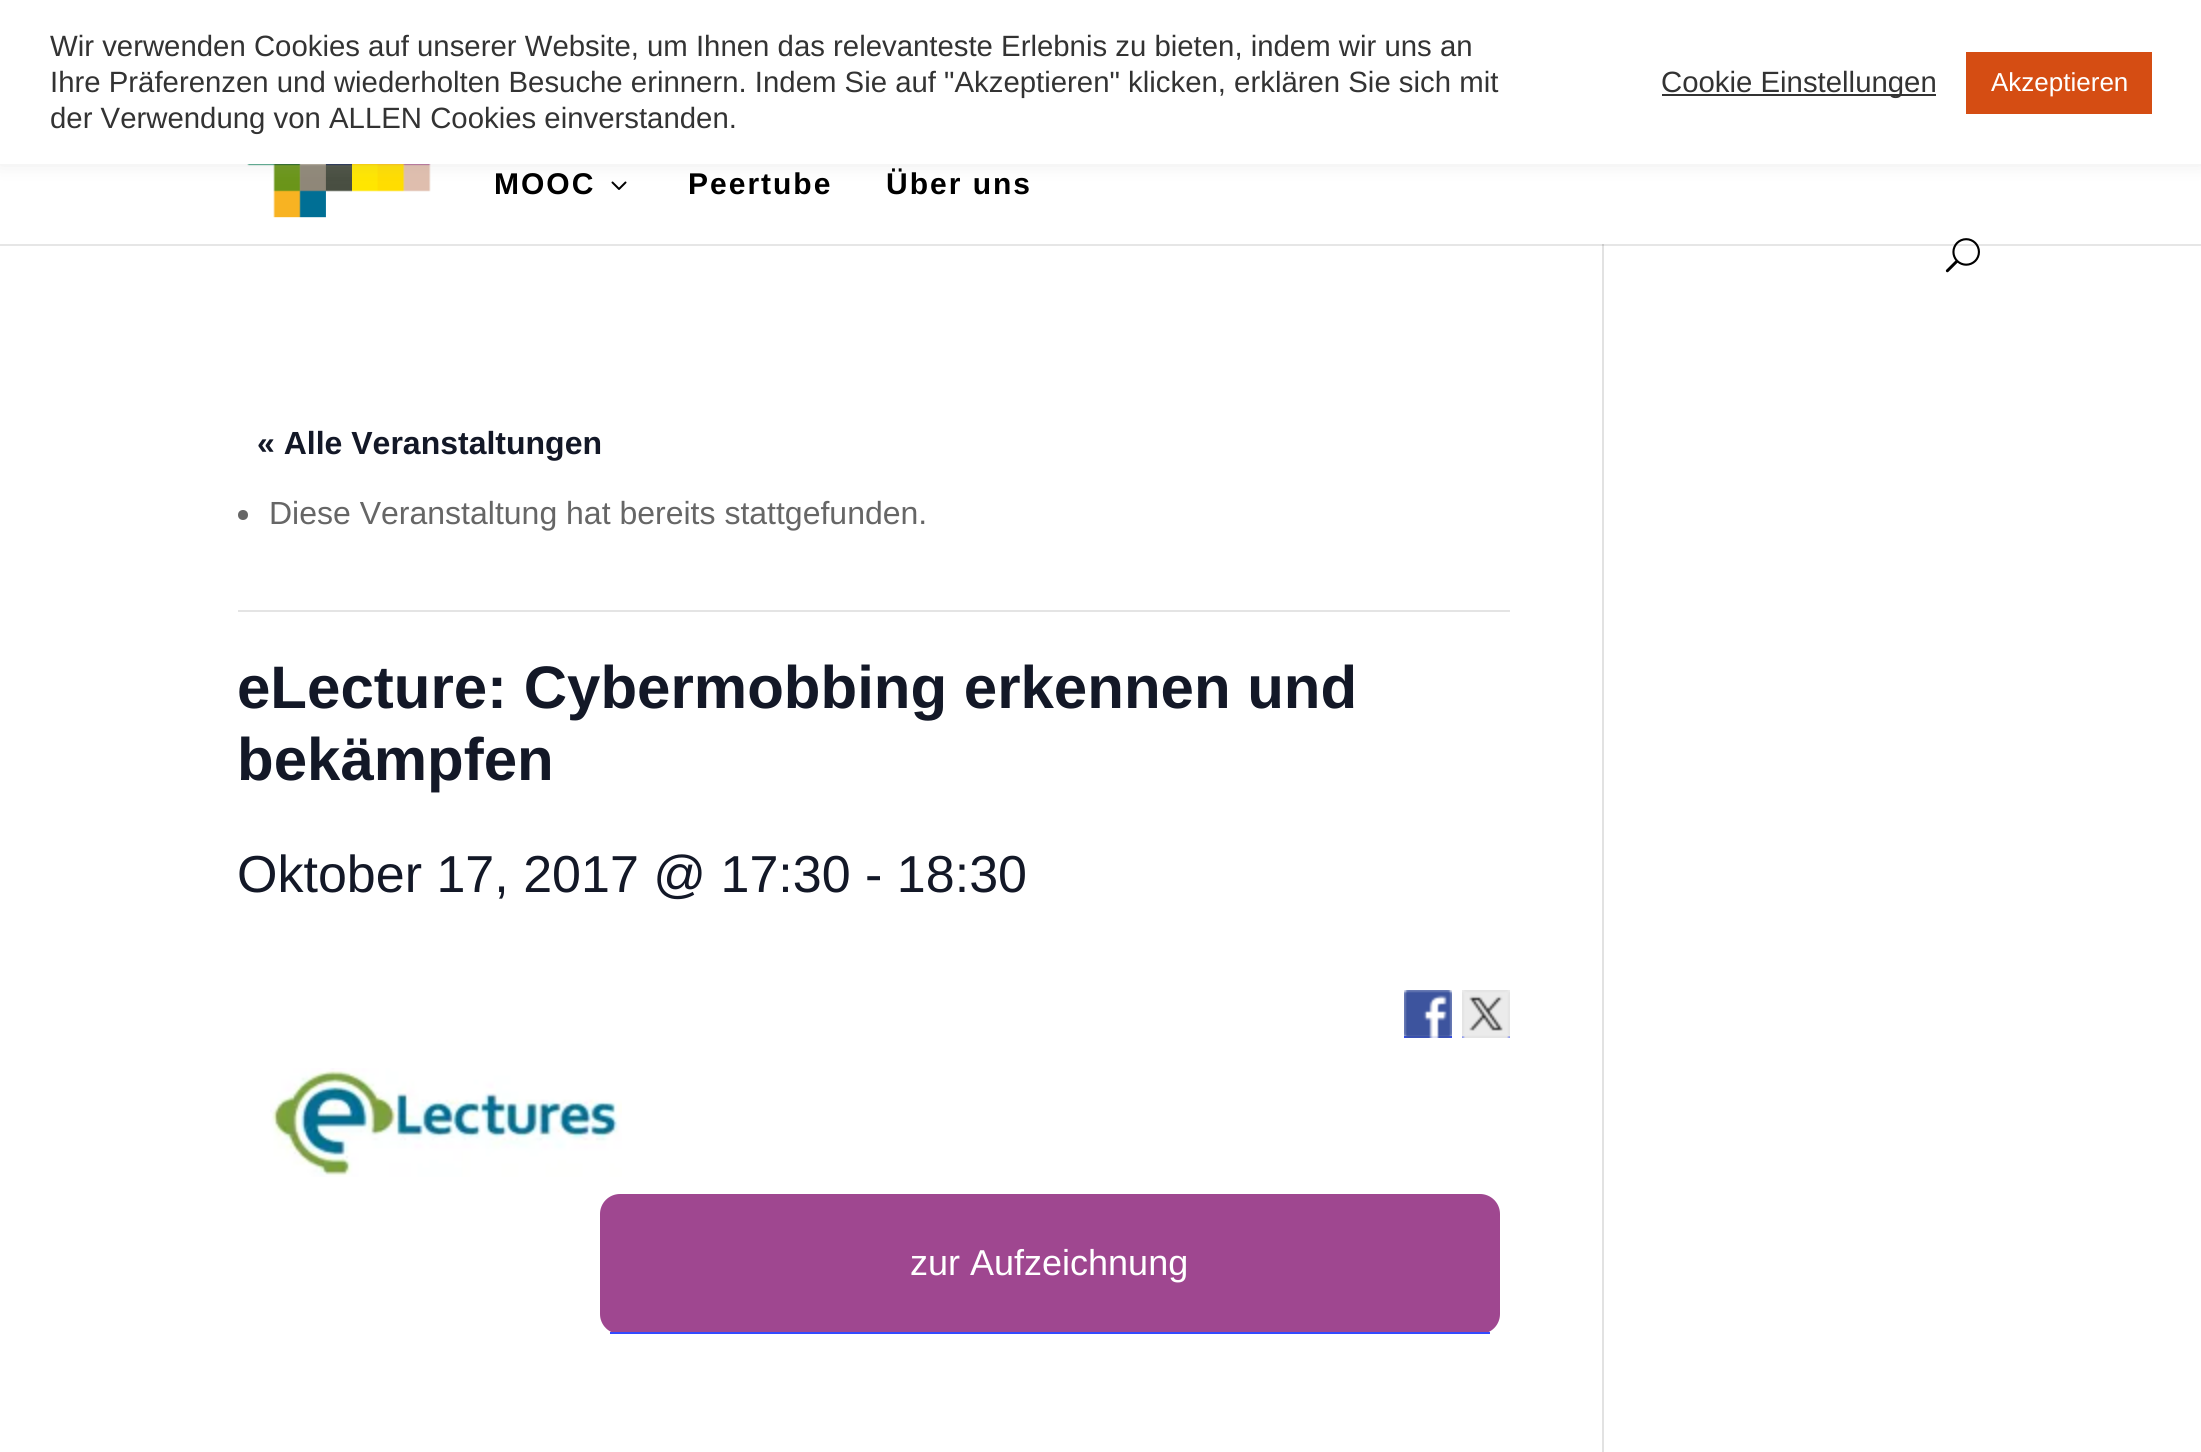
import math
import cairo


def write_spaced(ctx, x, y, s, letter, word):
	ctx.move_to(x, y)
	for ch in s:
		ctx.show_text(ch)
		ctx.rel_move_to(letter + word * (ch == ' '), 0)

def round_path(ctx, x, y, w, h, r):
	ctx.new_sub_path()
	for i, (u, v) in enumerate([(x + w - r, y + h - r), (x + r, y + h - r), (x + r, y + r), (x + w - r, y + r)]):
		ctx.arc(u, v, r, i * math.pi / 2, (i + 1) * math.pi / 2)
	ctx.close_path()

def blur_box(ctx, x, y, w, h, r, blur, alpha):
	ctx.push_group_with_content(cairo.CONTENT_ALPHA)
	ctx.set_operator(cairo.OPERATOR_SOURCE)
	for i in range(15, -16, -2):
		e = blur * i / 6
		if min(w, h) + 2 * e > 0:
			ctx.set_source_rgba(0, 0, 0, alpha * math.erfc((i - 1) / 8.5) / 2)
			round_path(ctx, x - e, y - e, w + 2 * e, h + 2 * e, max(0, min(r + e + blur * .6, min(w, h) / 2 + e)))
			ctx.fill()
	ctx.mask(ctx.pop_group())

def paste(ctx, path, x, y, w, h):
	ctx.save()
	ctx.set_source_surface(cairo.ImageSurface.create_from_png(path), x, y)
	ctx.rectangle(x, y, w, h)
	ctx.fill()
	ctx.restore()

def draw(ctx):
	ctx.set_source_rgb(1, 1, 1)
	ctx.paint()
	paste(ctx, 'media/1.png', 247, 164, 184, 54)
	paste(ctx, 'media/2.png', 611, 181, 16, 9)
	ctx.set_source_rgb(0.675, 0.671, 0.671)
	blur_box(ctx, 0, -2, 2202, 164, 0, 10, 0.3)
	ctx.set_source_rgb(1, 1, 1)
	ctx.rectangle(0, 0, 2201, 164)
	ctx.fill()
	ctx.select_font_face('Liberation Sans')
	ctx.set_font_size(29.35)
	ctx.set_source_rgb(0.2, 0.2, 0.2)
	for x, y, s in [
		(50, 56, 'Wir verwenden Cookies auf unserer Website, um Ihnen das relevanteste Erlebnis zu bieten, indem wir uns an'),
		(50, 92, 'Ihre Präferenzen und wiederholten Besuche erinnern. Indem Sie auf "Akzeptieren" klicken, erklären Sie sich mit'),
		(50, 128, 'der Verwendung von ALLEN Cookies einverstanden.'),
	]:
		ctx.move_to(x, y)
		ctx.show_text(s)
	ctx.rectangle(1662, 94, 274, 2)
	ctx.fill()
	ctx.move_to(1661, 92)
	ctx.show_text('Cookie Einstellungen')
	ctx.set_source_rgb(0.835, 0.302, 0.075)
	ctx.rectangle(1966, 52, 186, 62)
	ctx.fill()
	ctx.set_font_size(26)
	ctx.set_source_rgb(1, 1, 1)
	ctx.move_to(1991, 91)
	ctx.show_text('Akzeptieren')
	ctx.select_font_face('Liberation Sans', cairo.FONT_SLANT_NORMAL, cairo.FONT_WEIGHT_BOLD)
	ctx.set_font_size(30)
	ctx.set_source_rgb(0, 0, 0)
	for x, y, s in [
		(494, 194, 'MOOC'),
		(688, 194, 'Peertube'),
		(886, 194, 'Über uns'),
	]:
		write_spaced(ctx, x, y, s, 2, 0)
	ctx.set_source_rgb(0.902, 0.902, 0.902)
	ctx.rectangle(0, 244, 2201, 2)
	ctx.fill()
	paste(ctx, 'media/3.png', 1945, 238, 35, 35)
	ctx.set_font_size(32)
	ctx.set_source_rgb(0.078, 0.094, 0.153)
	ctx.move_to(257, 454)
	ctx.show_text('« Alle Veranstaltungen')
	ctx.set_source_rgb(0.894, 0.894, 0.894)
	ctx.rectangle(238, 610, 1272, 2)
	ctx.fill()
	ctx.set_source_rgb(0.4, 0.4, 0.4)
	ctx.arc(243, 515, 5, 0, 2 * math.pi)
	ctx.fill()
	ctx.select_font_face('Liberation Sans')
	ctx.move_to(269, 524)
	ctx.show_text('Diese Veranstaltung hat bereits stattgefunden.')
	ctx.select_font_face('Liberation Sans', cairo.FONT_SLANT_NORMAL, cairo.FONT_WEIGHT_BOLD)
	ctx.set_font_size(60)
	ctx.set_source_rgb(0.078, 0.094, 0.153)
	ctx.move_to(237, 708)
	ctx.show_text('eLecture: Cybermobbing erkennen und')
	ctx.move_to(237, 780)
	ctx.show_text('bekämpfen')
	ctx.select_font_face('Liberation Sans')
	ctx.set_font_size(52)
	ctx.move_to(237, 892)
	ctx.show_text('Oktober 17, 2017 @ 17:30 - 18:30')
	ctx.set_source_rgb(0.2, 0.29, 1)
	ctx.rectangle(1404, 1036, 48, 2)
	ctx.fill()
	paste(ctx, 'media/4.png', 1404, 990, 48, 48)
	ctx.rectangle(1462, 1036, 48, 2)
	ctx.fill()
	paste(ctx, 'media/5.png', 1462, 990, 48, 48)
	paste(ctx, 'media/6.png', 270, 1068, 352, 109)
	ctx.set_source_rgb(0.624, 0.278, 0.565)
	round_path(ctx, 600, 1194, 900, 140, 20)
	ctx.fill()
	ctx.set_source_rgb(0.2, 0.29, 1)
	ctx.rectangle(610, 1332, 880, 2)
	ctx.fill()
	ctx.set_font_size(36)
	ctx.set_source_rgb(1, 1, 1)
	ctx.move_to(910, 1275)
	ctx.show_text('zur Aufzeichnung')
	ctx.set_source_rgb(0.886, 0.886, 0.886)
	ctx.rectangle(1602, 244, 2, 1208)
	ctx.fill()
	ctx.set_source_rgb(0.796, 0.796, 0.796)
	ctx.rectangle(1602, 244, 2, 2)
	ctx.fill()


surface = cairo.ImageSurface(cairo.FORMAT_RGB24, 2201, 1452)
ctx = cairo.Context(surface)
options = cairo.FontOptions()
options.set_hint_metrics(cairo.HINT_METRICS_OFF)
options.set_hint_style(cairo.HINT_STYLE_NONE)
ctx.set_font_options(options)
ctx.set_miter_limit(4)
draw(ctx)
surface.write_to_png('image.png')
